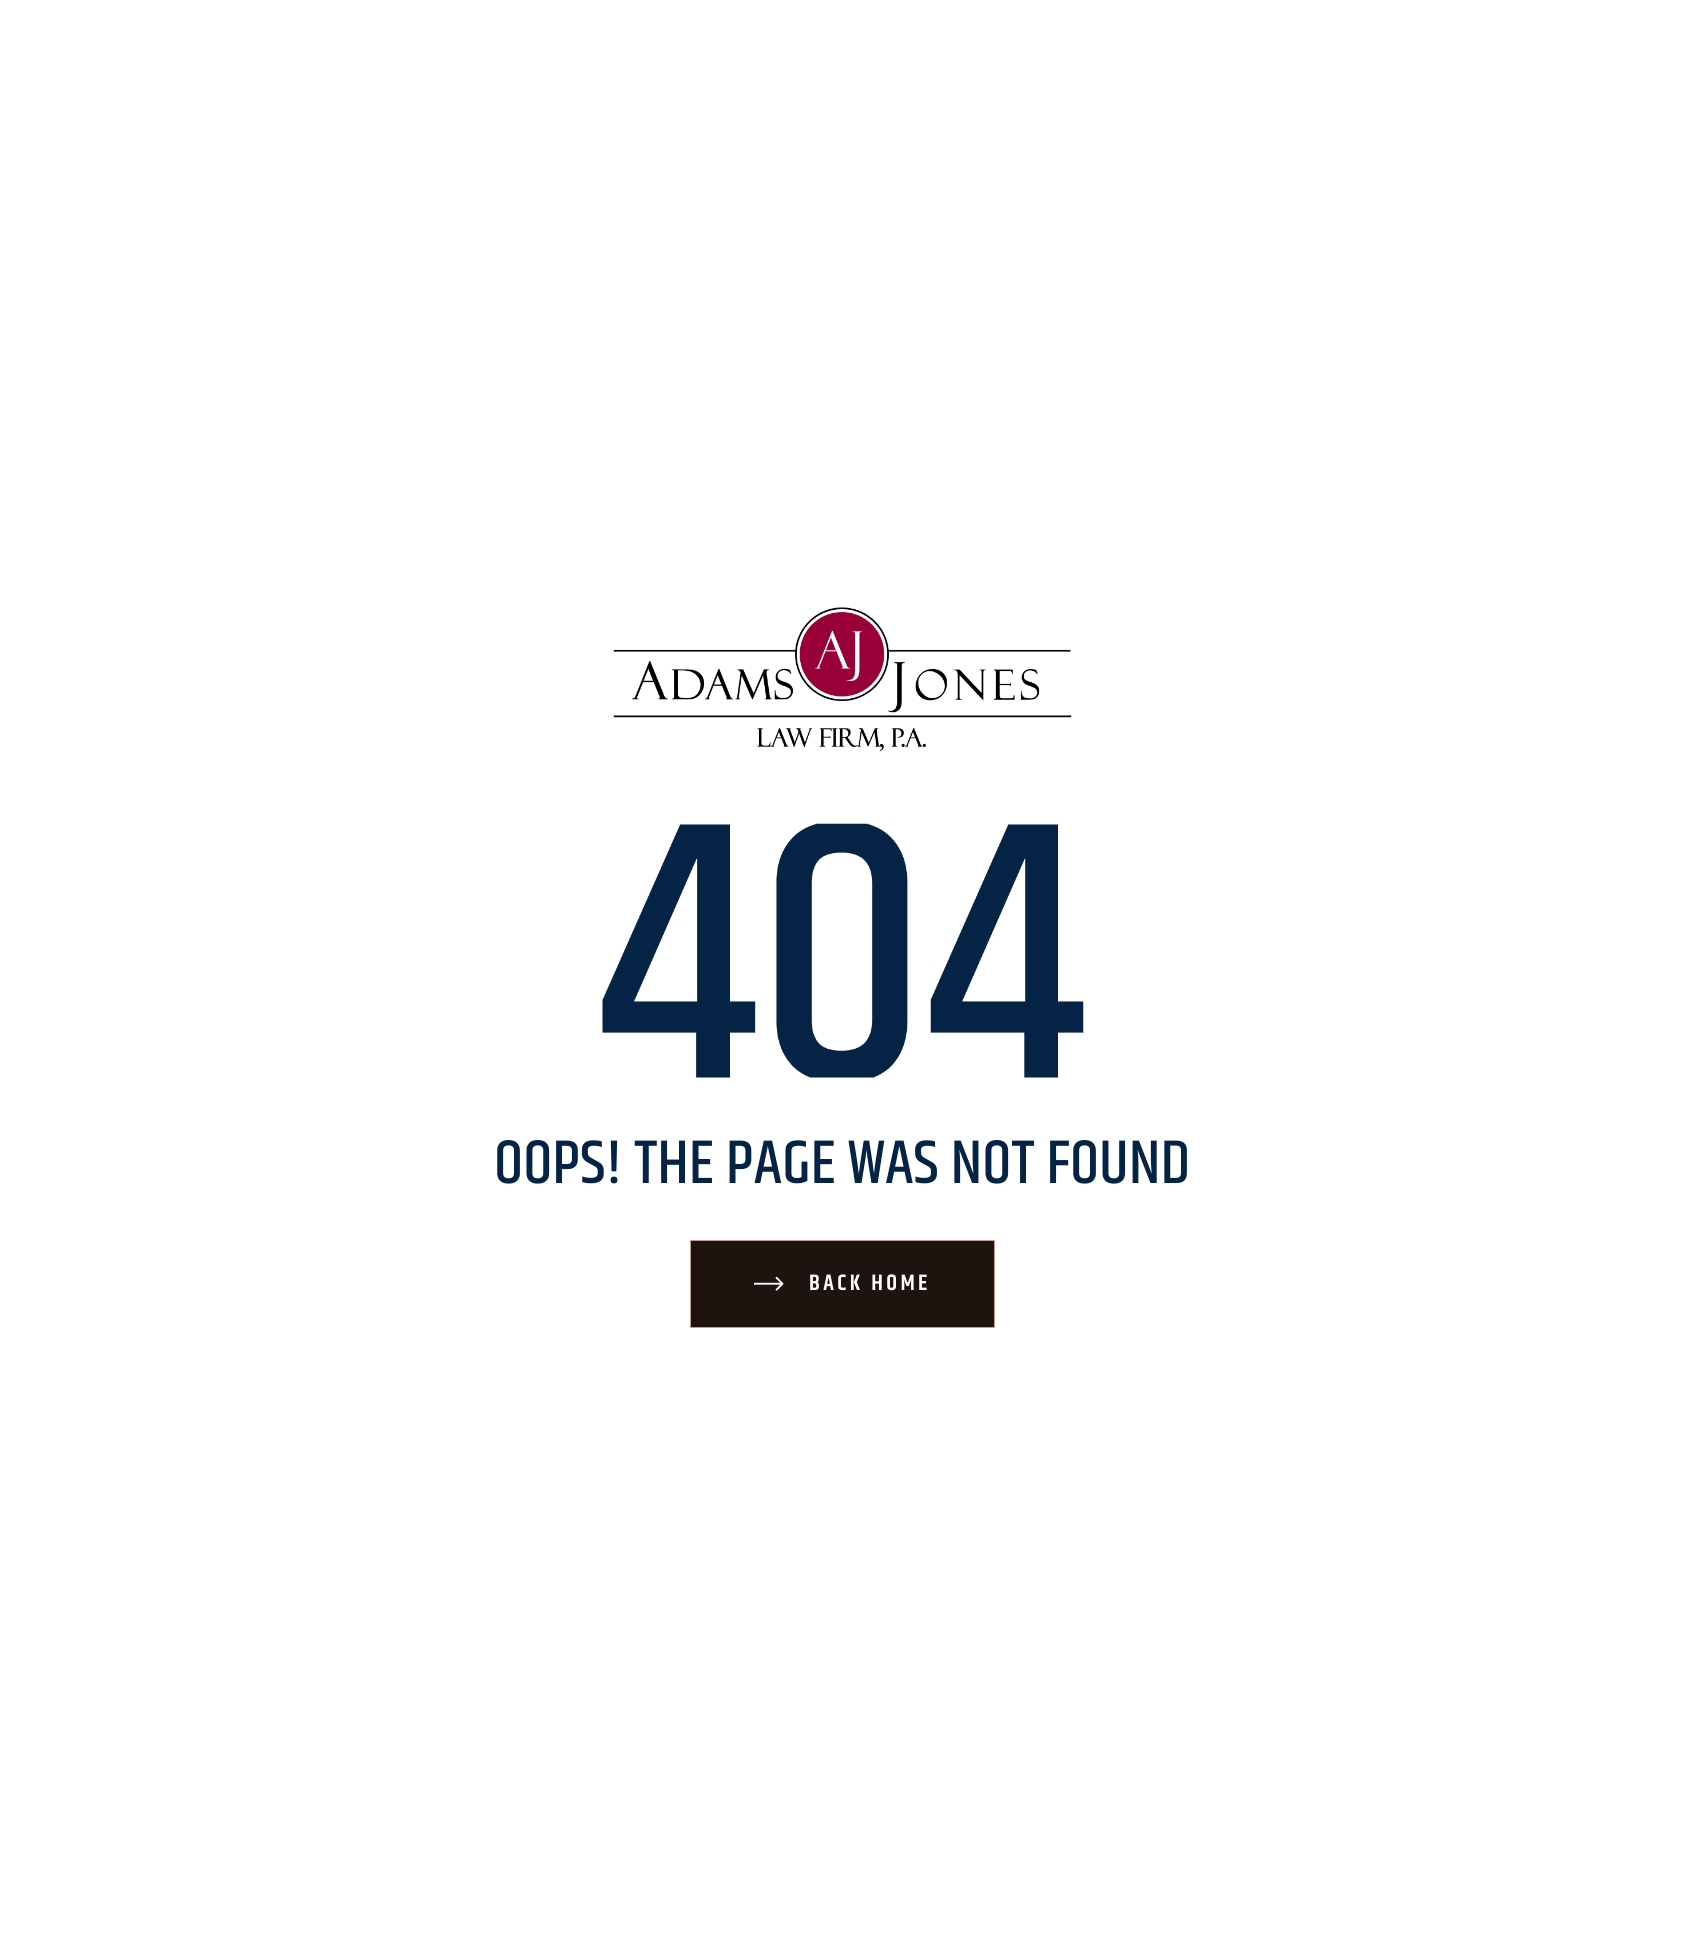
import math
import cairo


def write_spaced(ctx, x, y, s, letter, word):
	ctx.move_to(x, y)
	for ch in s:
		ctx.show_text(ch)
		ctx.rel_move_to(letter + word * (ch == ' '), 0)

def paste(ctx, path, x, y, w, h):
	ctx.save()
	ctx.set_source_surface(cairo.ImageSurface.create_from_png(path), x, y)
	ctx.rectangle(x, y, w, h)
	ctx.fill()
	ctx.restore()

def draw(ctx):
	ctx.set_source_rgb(1, 1, 1)
	ctx.paint()
	paste(ctx, 'media/1.png', 613, 607, 459, 145)
	paste(ctx, 'media/2.png', 602, 823, 482, 255)
	ctx.select_font_face('Khand Medium')
	ctx.set_font_size(62.5)
	ctx.set_source_rgb(0.02, 0.137, 0.271)
	ctx.move_to(494, 1183)
	ctx.show_text('OOPS! THE PAGE WAS NOT FOUND')
	ctx.set_source_rgb(0.118, 0.078, 0.055)
	ctx.rectangle(690.5, 1240.5, 304, 87)
	ctx.fill_preserve()
	ctx.set_source_rgb(0.788, 0.608, 0.561)
	ctx.set_line_width(1)
	ctx.stroke()
	paste(ctx, 'media/3.png', 754, 1276, 30, 15)
	ctx.select_font_face('Khand SemiBold')
	ctx.set_font_size(22.5)
	ctx.set_source_rgb(1, 1, 1)
	write_spaced(ctx, 809, 1290, 'BACK HOME', 3.4, 0)


surface = cairo.ImageSurface(cairo.FORMAT_RGB24, 1685, 1935)
ctx = cairo.Context(surface)
options = cairo.FontOptions()
options.set_hint_metrics(cairo.HINT_METRICS_OFF)
options.set_hint_style(cairo.HINT_STYLE_NONE)
ctx.set_font_options(options)
ctx.set_miter_limit(4)
draw(ctx)
surface.write_to_png('image.png')
